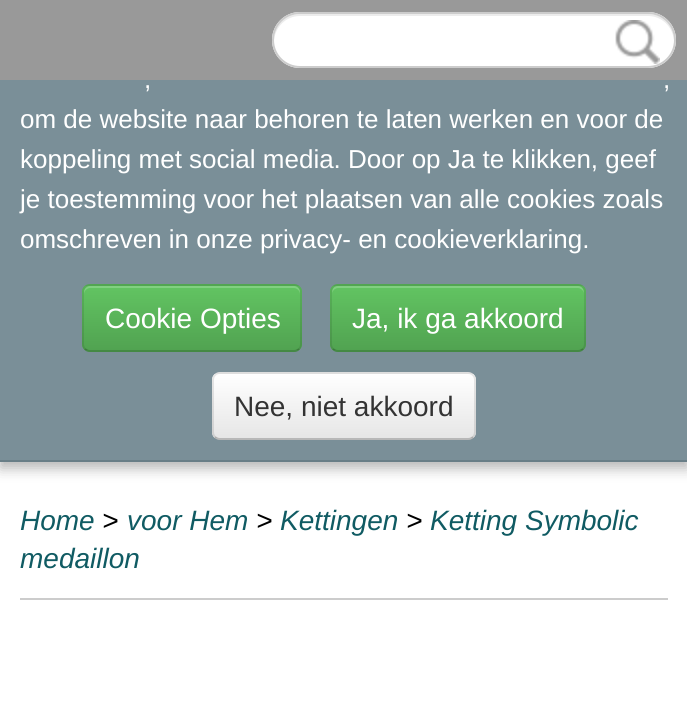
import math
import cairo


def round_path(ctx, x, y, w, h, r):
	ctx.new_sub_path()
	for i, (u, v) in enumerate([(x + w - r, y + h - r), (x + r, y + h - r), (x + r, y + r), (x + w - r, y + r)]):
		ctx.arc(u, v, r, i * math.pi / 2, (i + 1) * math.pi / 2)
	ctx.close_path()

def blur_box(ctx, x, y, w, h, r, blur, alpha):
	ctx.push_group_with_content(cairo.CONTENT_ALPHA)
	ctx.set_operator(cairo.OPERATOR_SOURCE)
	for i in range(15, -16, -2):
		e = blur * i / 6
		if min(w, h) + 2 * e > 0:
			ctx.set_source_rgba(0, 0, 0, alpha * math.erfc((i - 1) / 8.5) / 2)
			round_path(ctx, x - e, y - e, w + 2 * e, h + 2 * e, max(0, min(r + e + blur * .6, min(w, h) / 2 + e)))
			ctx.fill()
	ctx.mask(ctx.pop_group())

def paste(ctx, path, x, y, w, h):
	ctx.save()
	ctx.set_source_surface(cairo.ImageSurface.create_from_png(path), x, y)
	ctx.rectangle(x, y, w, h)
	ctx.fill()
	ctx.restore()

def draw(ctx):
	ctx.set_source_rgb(1, 1, 1)
	ctx.paint()
	ctx.set_source_rgb(0, 0, 0)
	blur_box(ctx, 0, 6, 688, 462, 0, 7, 0.3)
	ctx.set_source_rgb(0.6, 0.6, 0.6)
	ctx.rectangle(0, 0, 687, 80)
	ctx.fill()
	ctx.set_source_rgb(1, 1, 1)
	round_path(ctx, 272, 12, 404, 56, 28)
	ctx.fill()
	ctx.set_source_rgb(0.925, 0.925, 0.925)
	ctx.new_path()
	ctx.move_to(300, 16)
	ctx.line_to(648, 16)
	ctx.curve_to(662, 16, 673, 27, 674, 41)
	ctx.curve_to(675, 26, 663, 14, 648, 14)
	ctx.line_to(300, 14)
	ctx.curve_to(285, 14, 273, 26, 274, 41)
	ctx.curve_to(275, 27, 286, 16, 300, 16)
	ctx.close_path()
	ctx.fill()
	round_path(ctx, 273, 13, 402, 54, 27)
	ctx.set_source_rgb(0.8, 0.8, 0.8)
	ctx.stroke()
	paste(ctx, 'media/1.png', 615, 20, 45, 44)
	ctx.set_source_rgb(0.478, 0.561, 0.596)
	ctx.rectangle(0, 80, 687, 380)
	ctx.fill()
	ctx.set_source_rgb(0.412, 0.494, 0.529)
	ctx.rectangle(0, 460, 687, 2)
	ctx.fill()
	ctx.select_font_face('Liberation Sans')
	ctx.set_font_size(26)
	ctx.set_source_rgb(1, 1, 1)
	for x, y, s in [
		(144, 88, ','),
		(663, 88, ','),
		(20, 128, 'om de website naar behoren te laten werken en voor de'),
		(20, 168, 'koppeling met social media. Door op Ja te klikken, geef'),
		(20, 208, 'je toestemming voor het plaatsen van alle cookies zoals'),
		(20, 248, 'omschreven in onze privacy- en cookieverklaring.'),
	]:
		ctx.move_to(x, y)
		ctx.show_text(s)
	ctx.set_source_rgb(0.357, 0.718, 0.357)
	round_path(ctx, 82, 284, 220, 68, 8)
	ctx.fill()
	ctx.save()
	round_path(ctx, 82, 284, 220, 68, 8)
	ctx.clip()
	gradient = cairo.LinearGradient(192, 286, 192, 350)
	gradient.add_color_stop_rgba(0, 0.384, 0.769, 0.384, 1)
	gradient.add_color_stop_rgba(1, 0.318, 0.639, 0.318, 1)
	ctx.set_source(gradient)
	ctx.rectangle(82, 286, 220, 64)
	ctx.fill()
	ctx.restore()
	ctx.set_source_rgba(1, 1, 1, 0.2)
	ctx.new_path()
	ctx.move_to(90, 288)
	ctx.line_to(294, 288)
	ctx.curve_to(297, 288, 300, 291, 300, 294)
	ctx.line_to(300, 292)
	ctx.curve_to(300, 289, 297, 286, 294, 286)
	ctx.line_to(90, 286)
	ctx.curve_to(87, 286, 84, 289, 84, 292)
	ctx.line_to(84, 294)
	ctx.curve_to(84, 291, 87, 288, 90, 288)
	ctx.close_path()
	ctx.fill()
	ctx.new_path()
	ctx.move_to(299, 349)
	ctx.curve_to(297.5, 350.5, 296, 351, 294, 351)
	ctx.line_to(90, 351)
	ctx.curve_to(88, 351, 86.5, 350.5, 85, 349)
	ctx.set_source_rgba(0, 0, 0, 0.25)
	ctx.stroke()
	ctx.new_path()
	ctx.move_to(85, 349)
	ctx.curve_to(83.5, 347.5, 83, 346, 83, 344)
	ctx.line_to(83, 292)
	ctx.curve_to(83, 290, 83.5, 288.5, 85, 287)
	ctx.curve_to(86.5, 285.5, 88, 285, 90, 285)
	ctx.line_to(294, 285)
	ctx.curve_to(296, 285, 297.5, 285.5, 299, 287)
	ctx.curve_to(300.5, 288.5, 301, 290, 301, 292)
	ctx.line_to(301, 344)
	ctx.curve_to(301, 346, 300.5, 347.5, 299, 349)
	ctx.set_source_rgba(0, 0, 0, 0.1)
	ctx.stroke()
	ctx.set_font_size(28)
	ctx.set_source_rgb(1, 1, 1)
	ctx.move_to(105, 328)
	ctx.show_text('Cookie Opties')
	ctx.set_source_rgb(0.357, 0.718, 0.357)
	round_path(ctx, 330, 284, 256, 68, 8)
	ctx.fill()
	ctx.save()
	round_path(ctx, 330, 284, 256, 68, 8)
	ctx.clip()
	gradient = cairo.LinearGradient(458, 286, 458, 350)
	gradient.add_color_stop_rgba(0, 0.384, 0.769, 0.384, 1)
	gradient.add_color_stop_rgba(1, 0.318, 0.639, 0.318, 1)
	ctx.set_source(gradient)
	ctx.rectangle(330, 286, 256, 64)
	ctx.fill()
	ctx.restore()
	ctx.set_source_rgb(0.506, 0.812, 0.506)
	ctx.new_path()
	ctx.move_to(338, 288)
	ctx.line_to(578, 288)
	ctx.curve_to(581, 288, 584, 291, 584, 294)
	ctx.curve_to(584, 291, 583, 287, 579, 286)
	ctx.line_to(338, 286)
	ctx.curve_to(333, 286, 332, 290, 332, 294)
	ctx.curve_to(332, 291, 335, 288, 338, 288)
	ctx.close_path()
	ctx.fill()
	ctx.new_path()
	ctx.move_to(583, 349)
	ctx.curve_to(581.5, 350.5, 580, 351, 578, 351)
	ctx.line_to(338, 351)
	ctx.curve_to(336, 351, 334.5, 350.5, 333, 349)
	ctx.set_source_rgba(0, 0, 0, 0.25)
	ctx.stroke()
	ctx.new_path()
	ctx.move_to(333, 349)
	ctx.curve_to(331.5, 347.5, 331, 346, 331, 344)
	ctx.line_to(331, 292)
	ctx.curve_to(331, 290, 331.5, 288.5, 333, 287)
	ctx.curve_to(334.5, 285.5, 336, 285, 338, 285)
	ctx.line_to(578, 285)
	ctx.curve_to(580, 285, 581.5, 285.5, 583, 287)
	ctx.curve_to(584.5, 288.5, 585, 290, 585, 292)
	ctx.line_to(585, 344)
	ctx.curve_to(585, 346, 584.5, 347.5, 583, 349)
	ctx.set_source_rgba(0, 0, 0, 0.1)
	ctx.stroke()
	ctx.set_source_rgb(1, 1, 1)
	ctx.move_to(352, 328)
	ctx.show_text('Ja, ik ga akkoord')
	ctx.set_source_rgb(0.961, 0.961, 0.961)
	round_path(ctx, 212, 372, 264, 68, 8)
	ctx.fill()
	ctx.save()
	round_path(ctx, 212, 372, 264, 68, 8)
	ctx.clip()
	gradient = cairo.LinearGradient(344, 374, 344, 438)
	gradient.add_color_stop_rgba(0, 1, 1, 1, 1)
	gradient.add_color_stop_rgba(1, 0.902, 0.902, 0.902, 1)
	ctx.set_source(gradient)
	ctx.rectangle(212, 374, 264, 64)
	ctx.fill()
	ctx.restore()
	ctx.new_path()
	ctx.move_to(473, 437)
	ctx.curve_to(471.5, 438.5, 470, 439, 468, 439)
	ctx.line_to(220, 439)
	ctx.curve_to(218, 439, 216.5, 438.5, 215, 437)
	ctx.set_source_rgba(0, 0, 0, 0.25)
	ctx.stroke()
	ctx.new_path()
	ctx.move_to(215, 437)
	ctx.curve_to(213.5, 435.5, 213, 434, 213, 432)
	ctx.line_to(213, 380)
	ctx.curve_to(213, 378, 213.5, 376.5, 215, 375)
	ctx.curve_to(216.5, 373.5, 218, 373, 220, 373)
	ctx.line_to(468, 373)
	ctx.curve_to(470, 373, 471.5, 373.5, 473, 375)
	ctx.curve_to(474.5, 376.5, 475, 378, 475, 380)
	ctx.line_to(475, 432)
	ctx.curve_to(475, 434, 474.5, 435.5, 473, 437)
	ctx.set_source_rgba(0, 0, 0, 0.1)
	ctx.stroke()
	ctx.set_source_rgb(0.2, 0.2, 0.2)
	ctx.move_to(234, 416)
	ctx.show_text('Nee, niet akkoord')
	ctx.set_source_rgb(0.8, 0.8, 0.8)
	ctx.rectangle(20, 598, 648, 2)
	ctx.fill()
	ctx.select_font_face('Liberation Sans', cairo.FONT_SLANT_ITALIC)
	ctx.set_source_rgb(0.063, 0.357, 0.388)
	ctx.move_to(20, 530)
	ctx.show_text('Home')
	ctx.set_source_rgb(0, 0, 0)
	ctx.move_to(102, 530)
	ctx.show_text('>')
	ctx.set_source_rgb(0.063, 0.357, 0.388)
	ctx.move_to(127, 530)
	ctx.show_text('voor Hem')
	ctx.set_source_rgb(0, 0, 0)
	ctx.move_to(256, 530)
	ctx.show_text('>')
	ctx.set_source_rgb(0.063, 0.357, 0.388)
	ctx.move_to(280, 530)
	ctx.show_text('Kettingen')
	ctx.set_source_rgb(0, 0, 0)
	ctx.move_to(406, 530)
	ctx.show_text('>')
	ctx.set_source_rgb(0.063, 0.357, 0.388)
	ctx.move_to(430, 530)
	ctx.show_text('Ketting Symbolic')
	ctx.move_to(20, 568)
	ctx.show_text('medaillon')


surface = cairo.ImageSurface(cairo.FORMAT_RGB24, 687, 701)
ctx = cairo.Context(surface)
options = cairo.FontOptions()
options.set_hint_metrics(cairo.HINT_METRICS_OFF)
options.set_hint_style(cairo.HINT_STYLE_NONE)
ctx.set_font_options(options)
ctx.set_miter_limit(4)
draw(ctx)
surface.write_to_png('image.png')
